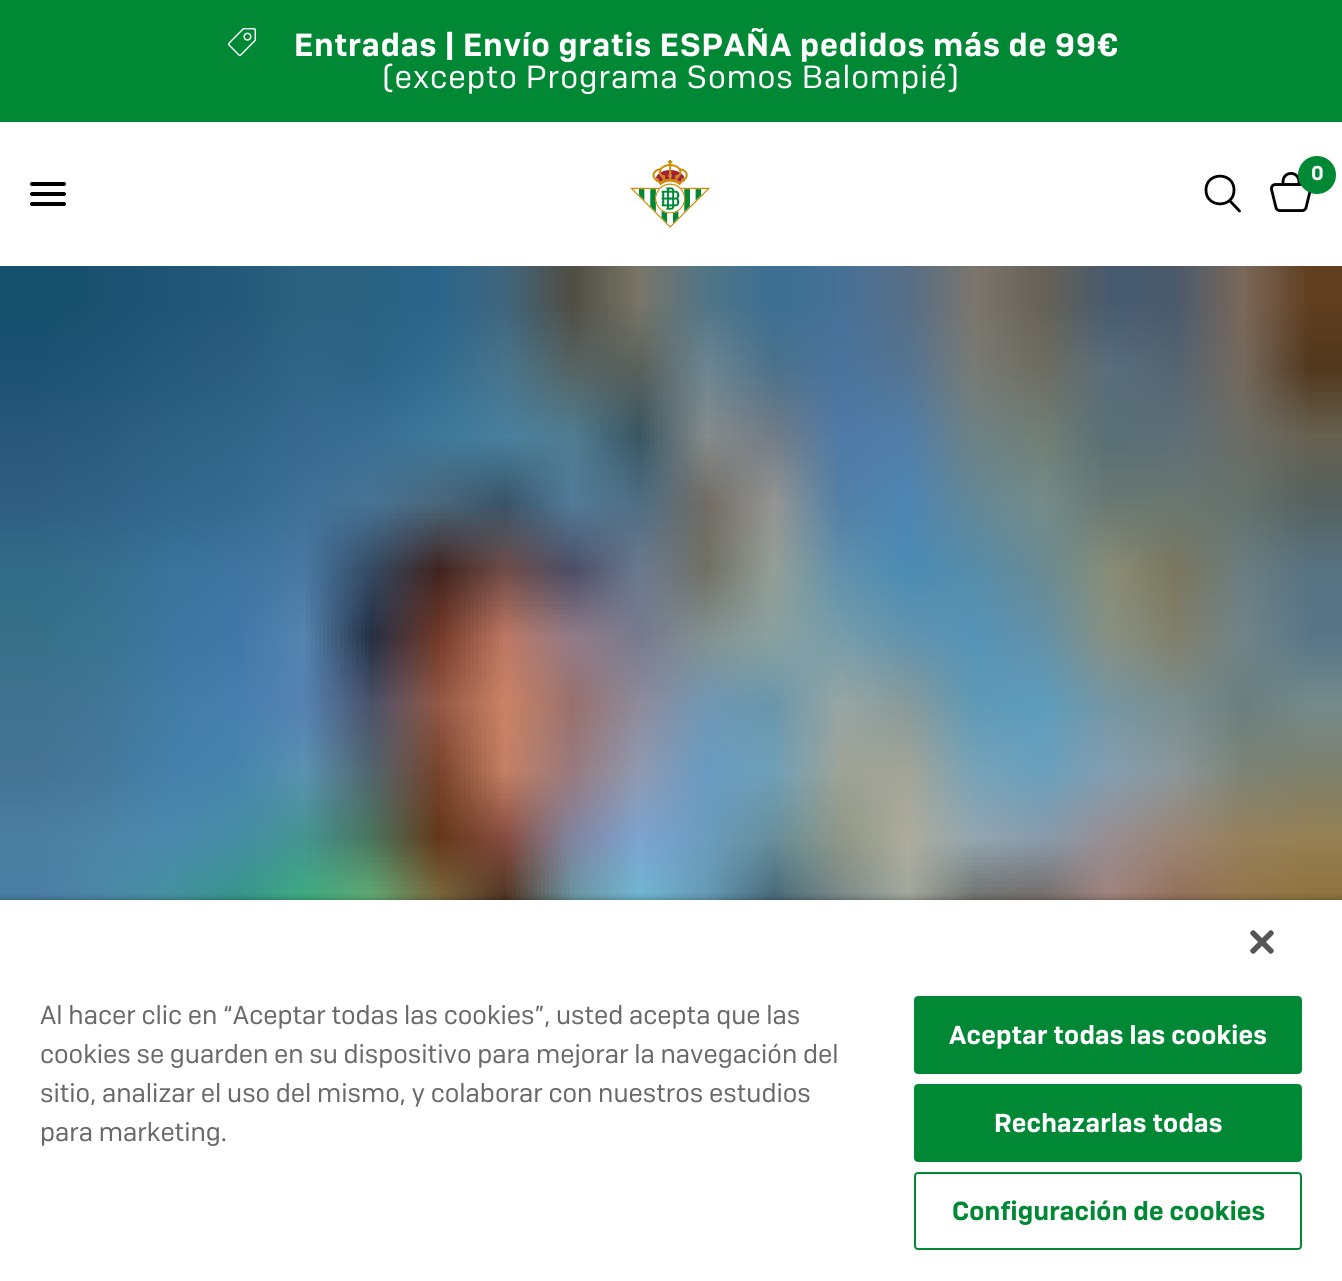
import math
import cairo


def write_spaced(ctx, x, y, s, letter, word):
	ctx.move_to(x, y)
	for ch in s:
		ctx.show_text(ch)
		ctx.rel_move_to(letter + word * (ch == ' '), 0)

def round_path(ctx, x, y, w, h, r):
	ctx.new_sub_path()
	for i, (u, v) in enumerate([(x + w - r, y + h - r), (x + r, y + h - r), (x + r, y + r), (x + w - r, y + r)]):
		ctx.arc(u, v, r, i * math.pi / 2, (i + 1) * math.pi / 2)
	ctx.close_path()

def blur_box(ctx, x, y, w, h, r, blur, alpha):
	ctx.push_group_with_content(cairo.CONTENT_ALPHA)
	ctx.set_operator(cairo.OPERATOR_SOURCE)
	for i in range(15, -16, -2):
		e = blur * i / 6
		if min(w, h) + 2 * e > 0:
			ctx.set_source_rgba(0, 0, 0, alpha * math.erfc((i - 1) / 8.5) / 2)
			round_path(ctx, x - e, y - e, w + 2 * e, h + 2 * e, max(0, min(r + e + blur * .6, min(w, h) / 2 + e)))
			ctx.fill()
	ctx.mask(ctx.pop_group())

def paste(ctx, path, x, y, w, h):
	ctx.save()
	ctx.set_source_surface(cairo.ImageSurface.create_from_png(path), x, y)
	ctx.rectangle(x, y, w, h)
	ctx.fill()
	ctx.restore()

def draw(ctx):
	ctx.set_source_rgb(1, 1, 1)
	ctx.paint()
	ctx.set_source_rgb(0, 0.533, 0.208)
	ctx.rectangle(0, 0, 1342, 122)
	ctx.fill()
	paste(ctx, 'media/1.png', 228, 28, 28, 28)
	ctx.select_font_face('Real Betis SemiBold')
	ctx.set_font_size(32)
	ctx.set_source_rgb(1, 1, 1)
	write_spaced(ctx, 294, 56, 'Entradas', 0.95, 0)
	ctx.save()
	ctx.rectangle(172, 28, 1000, 66)
	ctx.clip()
	write_spaced(ctx, 445, 56, '| Envío gratis ESPAÑA pedidos más de 99€', 0.95, 0)
	ctx.restore()
	ctx.select_font_face('Real Betis')
	write_spaced(ctx, 382, 88, '(excepto Programa Somos Balompié)', 0.95, 0)
	paste(ctx, 'media/2.png', 630, 160, 81, 68)
	ctx.new_path()
	ctx.move_to(1230, 201)
	ctx.line_to(1239.5, 211)
	ctx.move_to(1234, 190)
	ctx.curve_to(1234, 208.5, 1206, 208.5, 1206, 190)
	ctx.curve_to(1206, 171.5, 1234, 171.5, 1234, 190)
	ctx.close_path()
	ctx.set_source_rgb(0, 0, 0)
	ctx.set_line_width(2.8)
	ctx.set_line_cap(cairo.LINE_CAP_ROUND)
	ctx.set_line_join(cairo.LINE_JOIN_ROUND)
	ctx.stroke()
	paste(ctx, 'media/3.png', 1270, 172, 41, 40)
	ctx.set_source_rgb(0, 0.533, 0.208)
	ctx.arc(1317, 175, 19, 0, 2 * math.pi)
	ctx.fill()
	ctx.select_font_face('Real Betis SemiBold')
	ctx.set_font_size(20)
	ctx.set_source_rgb(1, 1, 1)
	ctx.move_to(1311, 180)
	ctx.show_text('0')
	ctx.set_source_rgb(0, 0, 0)
	round_path(ctx, 30, 182, 36, 4, 2)
	ctx.fill()
	round_path(ctx, 30, 192, 36, 4, 2)
	ctx.fill()
	round_path(ctx, 30, 202, 36, 4, 2)
	ctx.fill()
	paste(ctx, 'media/4.png', 0, 266, 1342, 634)
	ctx.set_source_rgb(0, 0, 0)
	blur_box(ctx, 0, 900, 1342, 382, 0, 4, 0.35)
	ctx.set_source_rgb(1, 1, 1)
	ctx.rectangle(0, 900, 1342, 381)
	ctx.fill()
	paste(ctx, 'media/5.png', 1250, 930, 24, 24)
	ctx.select_font_face('Real Betis')
	ctx.set_font_size(26)
	ctx.set_source_rgb(0.412, 0.412, 0.412)
	for x, y, s in [
		(40, 1024, 'Al hacer clic en “Aceptar todas las cookies”, usted acepta que las'),
		(40, 1063, 'cookies se guarden en su dispositivo para mejorar la navegación del'),
		(40, 1102, 'sitio, analizar el uso del mismo, y colaborar con nuestros estudios'),
		(40, 1141, 'para marketing.'),
	]:
		ctx.move_to(x, y)
		ctx.show_text(s)
	ctx.set_source_rgb(0, 0.533, 0.208)
	round_path(ctx, 915, 997, 386, 76, 3)
	ctx.fill_preserve()
	ctx.set_line_width(2)
	ctx.set_line_cap(cairo.LINE_CAP_BUTT)
	ctx.set_line_join(cairo.LINE_JOIN_MITER)
	ctx.stroke()
	ctx.select_font_face('Real Betis SemiBold')
	ctx.set_source_rgb(1, 1, 1)
	write_spaced(ctx, 949, 1044, 'Aceptar todas las cookies', 0.25, 0)
	ctx.set_source_rgb(0, 0.533, 0.208)
	round_path(ctx, 915, 1085, 386, 76, 3)
	ctx.fill_preserve()
	ctx.stroke()
	ctx.set_source_rgb(1, 1, 1)
	write_spaced(ctx, 994, 1132, 'Rechazarlas todas', 0.25, 0)
	round_path(ctx, 915, 1173, 386, 76, 3)
	ctx.set_source_rgb(0, 0.533, 0.208)
	ctx.stroke()
	write_spaced(ctx, 952, 1220, 'Configuración de cookies', 0.25, 0)


surface = cairo.ImageSurface(cairo.FORMAT_RGB24, 1342, 1281)
ctx = cairo.Context(surface)
options = cairo.FontOptions()
options.set_hint_metrics(cairo.HINT_METRICS_OFF)
options.set_hint_style(cairo.HINT_STYLE_NONE)
ctx.set_font_options(options)
ctx.set_miter_limit(4)
draw(ctx)
surface.write_to_png('image.png')
